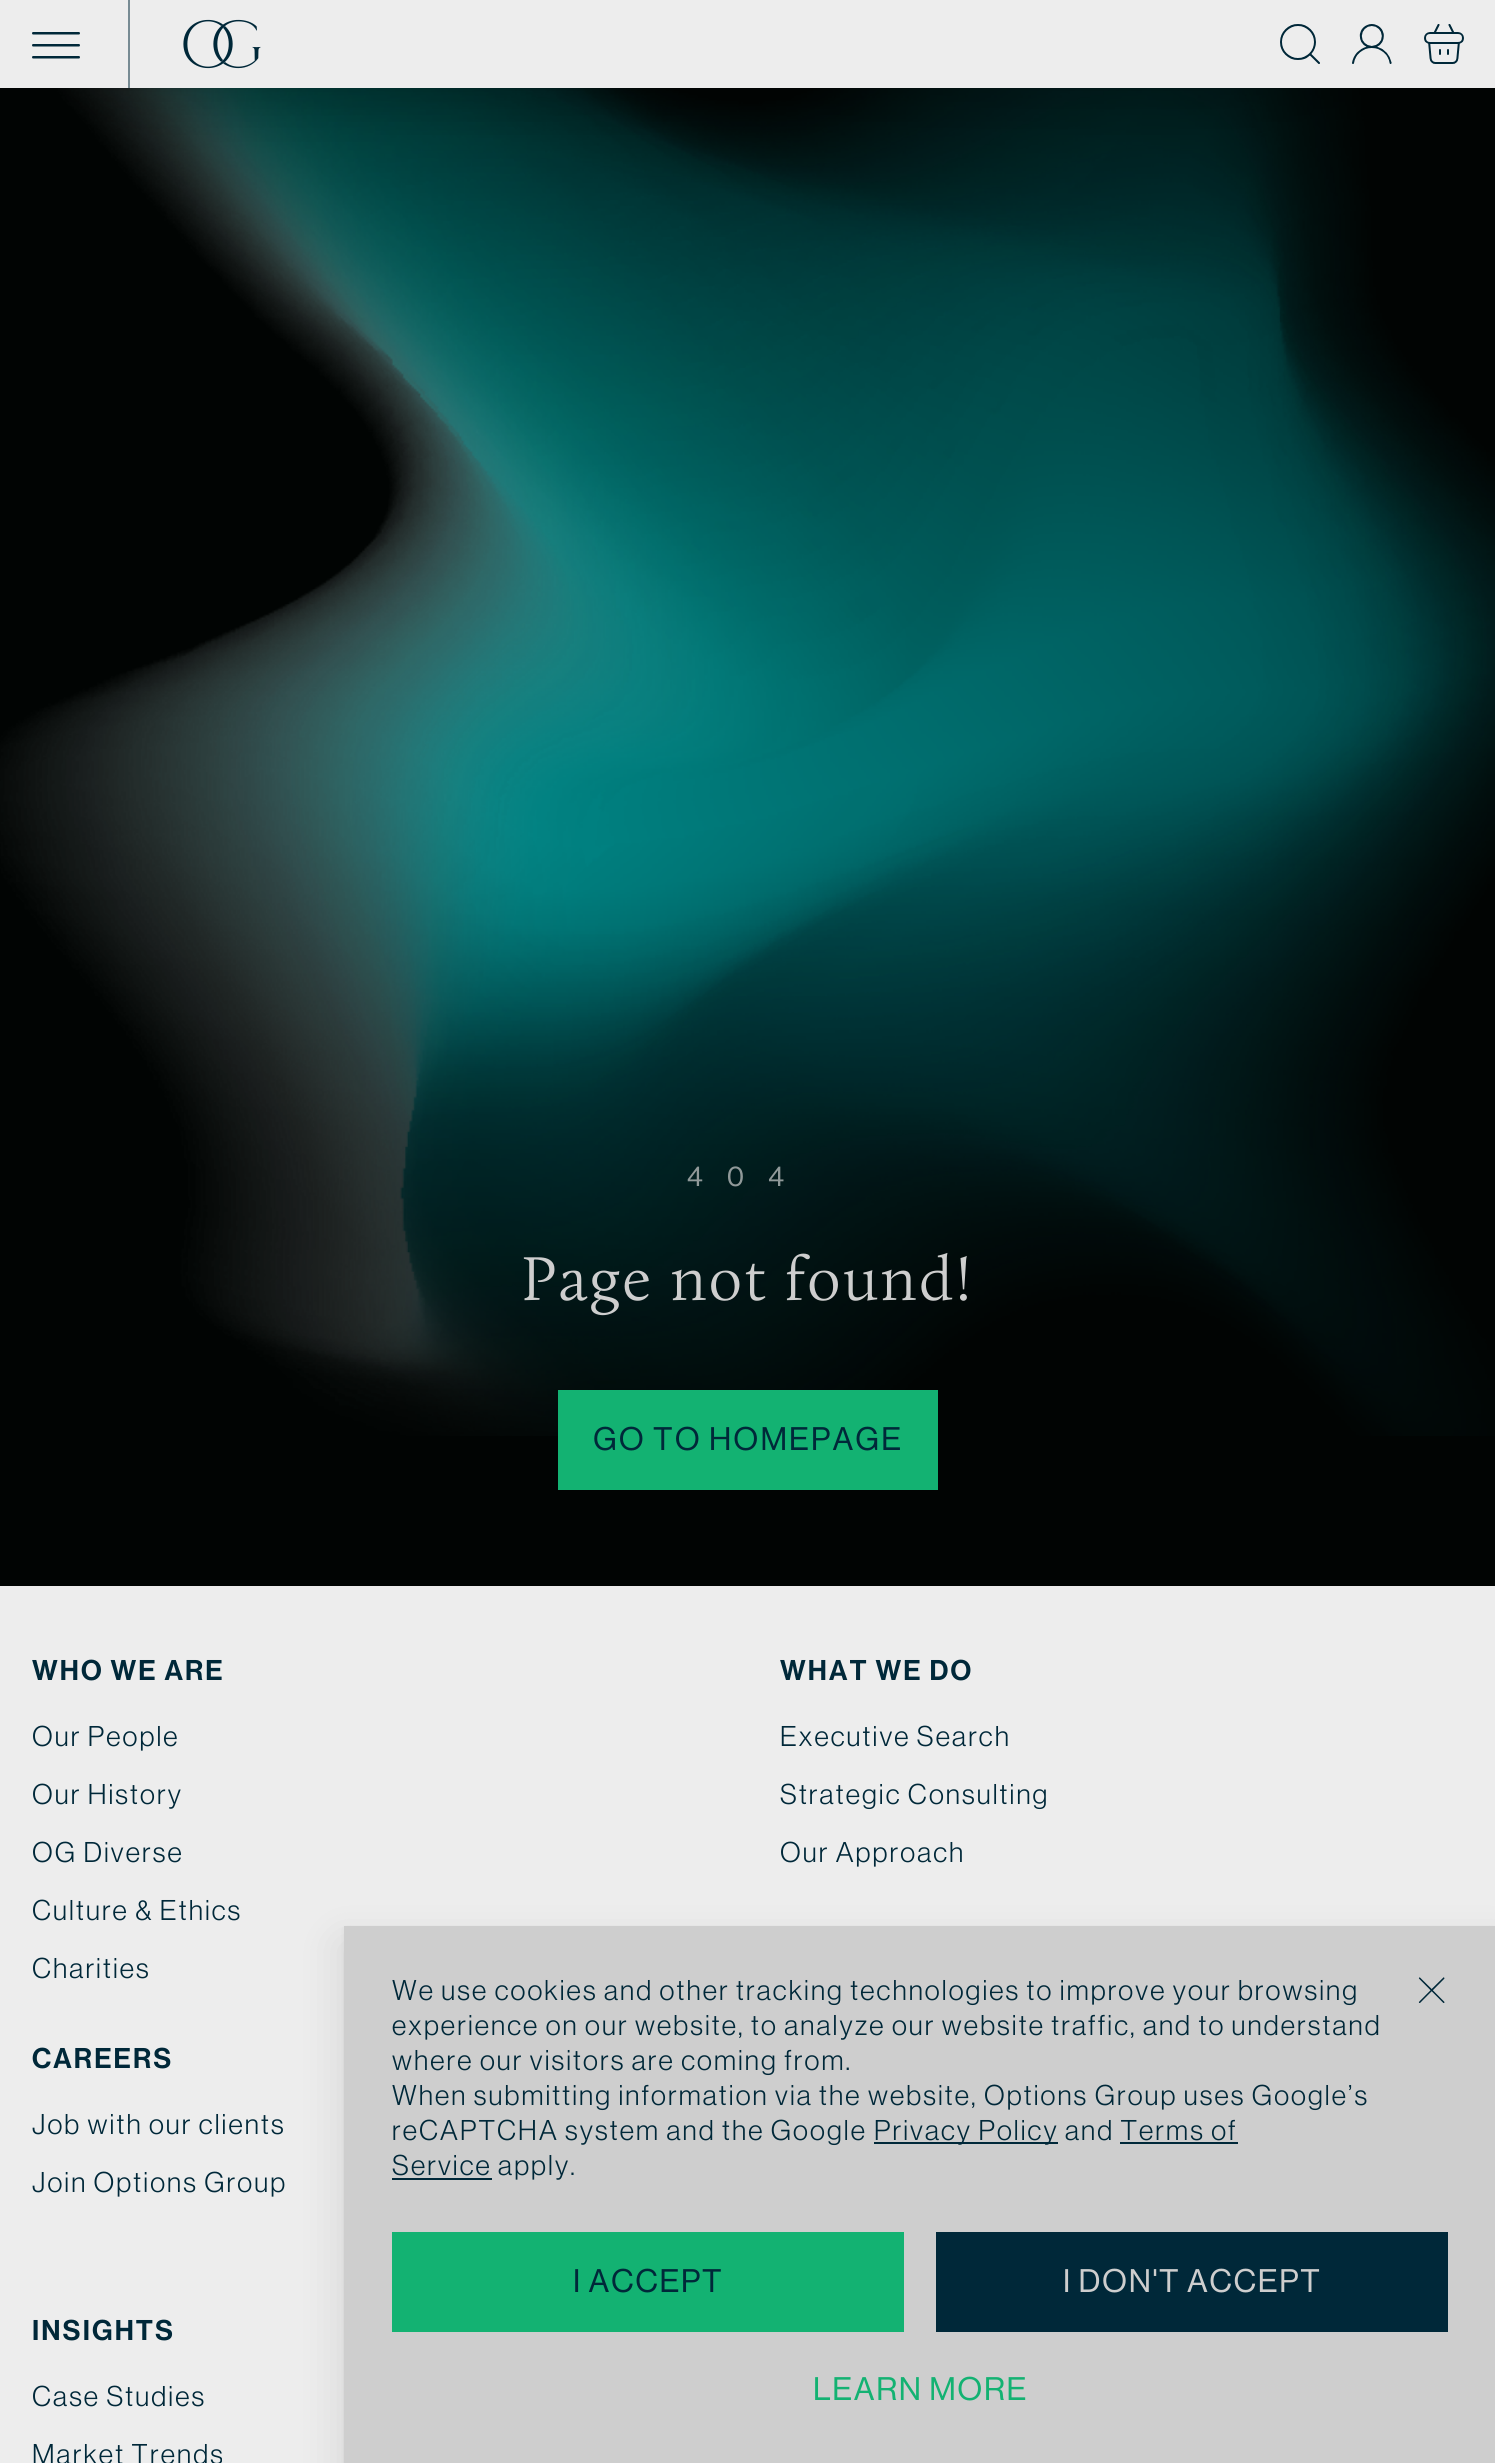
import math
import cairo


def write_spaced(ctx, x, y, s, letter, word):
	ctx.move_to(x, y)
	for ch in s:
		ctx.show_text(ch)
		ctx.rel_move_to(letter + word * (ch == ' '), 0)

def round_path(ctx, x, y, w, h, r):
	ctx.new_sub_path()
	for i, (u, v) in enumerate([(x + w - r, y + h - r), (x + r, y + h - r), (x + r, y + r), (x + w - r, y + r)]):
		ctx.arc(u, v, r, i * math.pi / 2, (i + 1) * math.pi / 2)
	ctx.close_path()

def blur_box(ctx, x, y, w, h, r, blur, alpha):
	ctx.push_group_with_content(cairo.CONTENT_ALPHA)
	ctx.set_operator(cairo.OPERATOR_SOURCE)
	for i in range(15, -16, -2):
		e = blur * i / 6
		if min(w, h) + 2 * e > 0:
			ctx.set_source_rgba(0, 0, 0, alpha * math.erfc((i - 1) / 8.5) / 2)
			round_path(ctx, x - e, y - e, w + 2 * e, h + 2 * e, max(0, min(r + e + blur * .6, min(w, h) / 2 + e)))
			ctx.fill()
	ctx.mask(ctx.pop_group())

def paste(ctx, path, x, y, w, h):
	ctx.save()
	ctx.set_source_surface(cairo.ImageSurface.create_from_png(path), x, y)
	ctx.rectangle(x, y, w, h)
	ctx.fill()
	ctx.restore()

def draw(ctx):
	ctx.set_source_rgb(0.929, 0.929, 0.929)
	ctx.paint()
	ctx.set_source_rgb(0.004, 0.016, 0.012)
	ctx.rectangle(0, 88, 1495, 1498)
	ctx.fill()
	paste(ctx, 'media/6.png', 0, 88, 1495, 1348)
	ctx.set_source_rgb(0, 0, 0)
	blur_box(ctx, 0, 2, 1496, 88, 0, 2, 0.06)
	blur_box(ctx, -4, 16, 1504, 96, 0, 20, 0.1)
	ctx.set_source_rgb(0.929, 0.929, 0.929)
	ctx.rectangle(0, 0, 1495, 88)
	ctx.fill()
	ctx.set_source_rgb(0.467, 0.545, 0.576)
	ctx.rectangle(128, 0, 2, 88)
	ctx.fill()
	paste(ctx, 'media/1.png', 32, 32, 48, 27)
	paste(ctx, 'media/2.png', 183, 19, 78, 50)
	paste(ctx, 'media/3.png', 1280, 24, 40, 40)
	paste(ctx, 'media/4.png', 1352, 24, 40, 40)
	paste(ctx, 'media/5.png', 1424, 24, 40, 40)
	ctx.select_font_face('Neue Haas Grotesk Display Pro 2 Medium')
	ctx.set_font_size(28)
	ctx.set_source_rgb(0.565, 0.6, 0.6)
	write_spaced(ctx, 687, 1186, '404', 24, 0)
	ctx.select_font_face('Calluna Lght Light')
	ctx.set_font_size(64)
	ctx.set_source_rgb(0.808, 0.808, 0.808)
	write_spaced(ctx, 521, 1300, 'Page not found!', 2.1, 0)
	ctx.set_source_rgb(0.078, 0.698, 0.447)
	ctx.rectangle(558, 1390, 380, 100)
	ctx.fill()
	ctx.select_font_face('Neue Haas Grotesk Display Pro 2 Medium')
	ctx.set_font_size(32)
	ctx.set_source_rgb(0, 0.157, 0.224)
	write_spaced(ctx, 593, 1450, 'GO TO HOMEPAGE', 2.1, 0)
	ctx.select_font_face('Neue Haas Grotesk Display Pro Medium')
	ctx.set_font_size(28)
	write_spaced(ctx, 32, 1680, 'WHO WE ARE', 2.1, 0)
	ctx.select_font_face('Neue Haas Grotesk Display Pro')
	for x, y, s in [
		(32, 1746, 'Our People'),
		(32, 1804, 'Our History'),
		(32, 1862, 'OG Diverse'),
		(32, 1920, 'Culture & Ethics'),
		(32, 1978, 'Charities'),
	]:
		write_spaced(ctx, x, y, s, 2.1, 0)
	ctx.select_font_face('Neue Haas Grotesk Display Pro Medium')
	write_spaced(ctx, 780, 1680, 'WHAT WE DO', 2.1, 0)
	ctx.select_font_face('Neue Haas Grotesk Display Pro')
	for x, y, s in [
		(780, 1746, 'Executive Search'),
		(780, 1804, 'Strategic Consulting'),
		(780, 1862, 'Our Approach'),
	]:
		write_spaced(ctx, x, y, s, 2.1, 0)
	ctx.select_font_face('Neue Haas Grotesk Display Pro Medium')
	write_spaced(ctx, 32, 2068, 'CAREERS', 2.1, 0)
	ctx.select_font_face('Neue Haas Grotesk Display Pro')
	write_spaced(ctx, 32, 2134, 'Job with our clients', 2.1, 0)
	write_spaced(ctx, 32, 2192, 'Join Options Group', 2.1, 0)
	ctx.select_font_face('Neue Haas Grotesk Display Pro Medium')
	write_spaced(ctx, 32, 2340, 'INSIGHTS', 2.1, 0)
	ctx.select_font_face('Neue Haas Grotesk Display Pro')
	write_spaced(ctx, 32, 2406, 'Case Studies', 2.1, 0)
	write_spaced(ctx, 32, 2464, 'Market Trends', 2.1, 0)
	ctx.set_source_rgb(0, 0, 0)
	blur_box(ctx, 344, 1928, 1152, 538, 0, 2, 0.06)
	blur_box(ctx, 340, 1942, 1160, 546, 0, 20, 0.1)
	ctx.set_source_rgb(0.808, 0.808, 0.808)
	ctx.rectangle(344, 1926, 1151, 537)
	ctx.fill()
	ctx.set_source_rgb(0, 0.157, 0.224)
	for x, y, s in [
		(392, 2000, 'We use cookies and other tracking technologies to improve your browsing'),
		(392, 2035, 'experience on our website, to analyze our website traffic, and to understand'),
		(392, 2070, 'where our visitors are coming from.'),
		(392, 2105, 'When submitting information via the website, Options Group uses Google’s'),
		(392, 2140, 'reCAPTCHA system and the Google'),
	]:
		write_spaced(ctx, x, y, s, 2.1, 0)
	ctx.rectangle(874, 2142, 184, 2)
	ctx.fill()
	write_spaced(ctx, 874, 2140, 'Privacy Policy and Terms of', 2.1, 0)
	ctx.rectangle(392, 2178, 100, 2)
	ctx.fill()
	write_spaced(ctx, 392, 2175, 'Service apply.', 2.1, 0)
	ctx.rectangle(1120, 2142, 118, 2)
	ctx.fill()
	paste(ctx, 'media/7.png', 1418, 1977, 27, 26)
	ctx.set_source_rgb(0.078, 0.698, 0.447)
	ctx.rectangle(392, 2232, 512, 100)
	ctx.fill()
	ctx.select_font_face('Neue Haas Grotesk Display Pro 2 Medium')
	ctx.set_font_size(32)
	ctx.set_source_rgb(0, 0.157, 0.224)
	write_spaced(ctx, 573, 2292, 'I ACCEPT', 1.6, 0)
	ctx.rectangle(936, 2232, 512, 100)
	ctx.fill()
	ctx.set_source_rgb(0.808, 0.808, 0.808)
	write_spaced(ctx, 1063, 2292, 'I DON\'T ACCEPT', 1.6, 0)
	ctx.set_source_rgb(0.078, 0.698, 0.447)
	write_spaced(ctx, 813, 2400, 'LEARN MORE', 1.6, 0)


surface = cairo.ImageSurface(cairo.FORMAT_RGB24, 1495, 2463)
ctx = cairo.Context(surface)
options = cairo.FontOptions()
options.set_hint_metrics(cairo.HINT_METRICS_OFF)
options.set_hint_style(cairo.HINT_STYLE_NONE)
ctx.set_font_options(options)
ctx.set_miter_limit(4)
draw(ctx)
surface.write_to_png('image.png')
